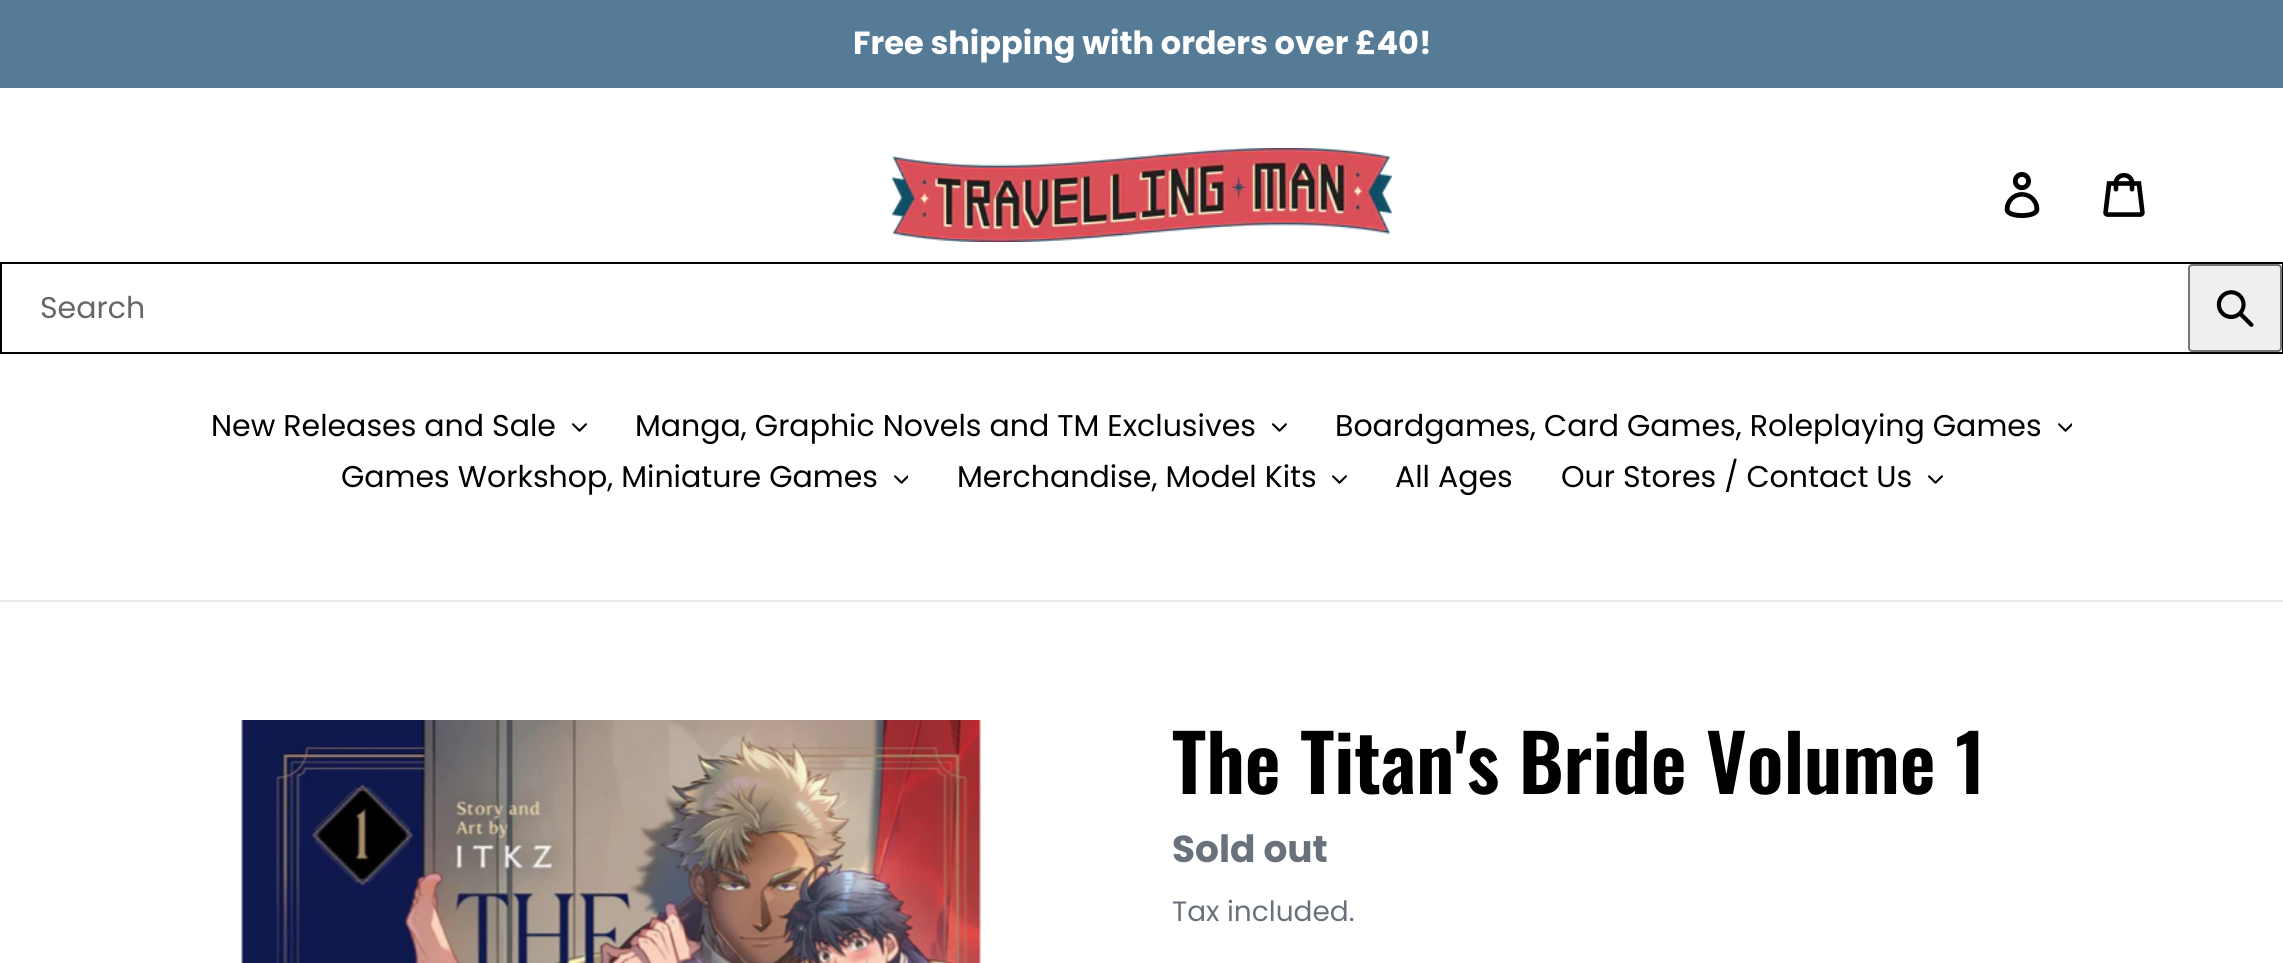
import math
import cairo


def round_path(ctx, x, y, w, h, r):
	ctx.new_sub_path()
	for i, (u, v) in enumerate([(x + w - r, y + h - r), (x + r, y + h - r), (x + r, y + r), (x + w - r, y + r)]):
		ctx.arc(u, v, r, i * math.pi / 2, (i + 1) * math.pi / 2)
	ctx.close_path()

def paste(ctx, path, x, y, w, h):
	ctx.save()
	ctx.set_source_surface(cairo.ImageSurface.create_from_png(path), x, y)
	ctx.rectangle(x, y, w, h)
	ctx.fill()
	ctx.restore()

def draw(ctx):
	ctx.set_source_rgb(1, 1, 1)
	ctx.paint()
	ctx.set_source_rgb(0.333, 0.482, 0.592)
	ctx.rectangle(0, 0, 2283, 88)
	ctx.fill()
	ctx.select_font_face('Poppins', cairo.FONT_SLANT_NORMAL, cairo.FONT_WEIGHT_BOLD)
	ctx.set_font_size(32)
	ctx.set_source_rgb(1, 1, 1)
	ctx.move_to(853, 54)
	ctx.show_text('Free shipping with orders over £40!')
	paste(ctx, 'media/1.png', 892, 148, 500, 94)
	paste(ctx, 'media/2.png', 2004, 172, 36, 46)
	paste(ctx, 'media/3.png', 2103, 172, 42, 45)
	ctx.rectangle(1, 263, 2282, 90)
	ctx.set_source_rgb(0, 0, 0)
	ctx.stroke()
	ctx.select_font_face('Poppins')
	ctx.set_font_size(30)
	ctx.set_source_rgb(0.4, 0.4, 0.4)
	ctx.move_to(40, 318)
	ctx.show_text('Search')
	ctx.set_source_rgb(0.937, 0.937, 0.937)
	round_path(ctx, 2189, 265, 92, 86, 3)
	ctx.fill_preserve()
	ctx.set_source_rgb(0.463, 0.463, 0.463)
	ctx.stroke()
	paste(ctx, 'media/4.png', 2216, 290, 38, 37)
	ctx.set_source_rgb(0.91, 0.914, 0.922)
	ctx.rectangle(0, 600, 2283, 2)
	ctx.fill()
	ctx.set_source_rgb(0, 0, 0)
	ctx.move_to(211, 436)
	ctx.show_text('New Releases and Sale')
	paste(ctx, 'media/5.png', 572, 423, 15, 9)
	ctx.move_to(635, 436)
	ctx.show_text('Manga, Graphic Novels and TM Exclusives')
	paste(ctx, 'media/5.png', 1272, 423, 15, 9)
	ctx.move_to(1335, 436)
	ctx.show_text('Boardgames, Card Games, Roleplaying Games')
	paste(ctx, 'media/6.png', 2058, 423, 14, 9)
	ctx.move_to(341, 487)
	ctx.show_text('Games Workshop, Miniature Games')
	paste(ctx, 'media/6.png', 894, 475, 14, 9)
	ctx.move_to(957, 487)
	ctx.show_text('Merchandise, Model Kits')
	paste(ctx, 'media/5.png', 1332, 475, 15, 9)
	ctx.move_to(1395, 487)
	ctx.show_text('All Ages')
	ctx.move_to(1561, 487)
	ctx.show_text('Our Stores / Contact Us')
	paste(ctx, 'media/5.png', 1928, 475, 15, 9)
	paste(ctx, 'media/7.png', 241, 720, 740, 243)
	ctx.select_font_face('Oswald SemiBold')
	ctx.set_font_size(78)
	ctx.move_to(1172, 794)
	ctx.show_text('The Titan\'s Bride Volume 1')
	ctx.select_font_face('Poppins', cairo.FONT_SLANT_NORMAL, cairo.FONT_WEIGHT_BOLD)
	ctx.set_font_size(37.5)
	ctx.set_source_rgb(0.412, 0.447, 0.482)
	ctx.move_to(1172, 862)
	ctx.show_text('Sold out')
	ctx.select_font_face('Poppins')
	ctx.set_font_size(28)
	ctx.move_to(1172, 921)
	ctx.show_text('Tax included.')


surface = cairo.ImageSurface(cairo.FORMAT_RGB24, 2283, 963)
ctx = cairo.Context(surface)
options = cairo.FontOptions()
options.set_hint_metrics(cairo.HINT_METRICS_OFF)
options.set_hint_style(cairo.HINT_STYLE_NONE)
ctx.set_font_options(options)
ctx.set_miter_limit(4)
draw(ctx)
surface.write_to_png('image.png')
